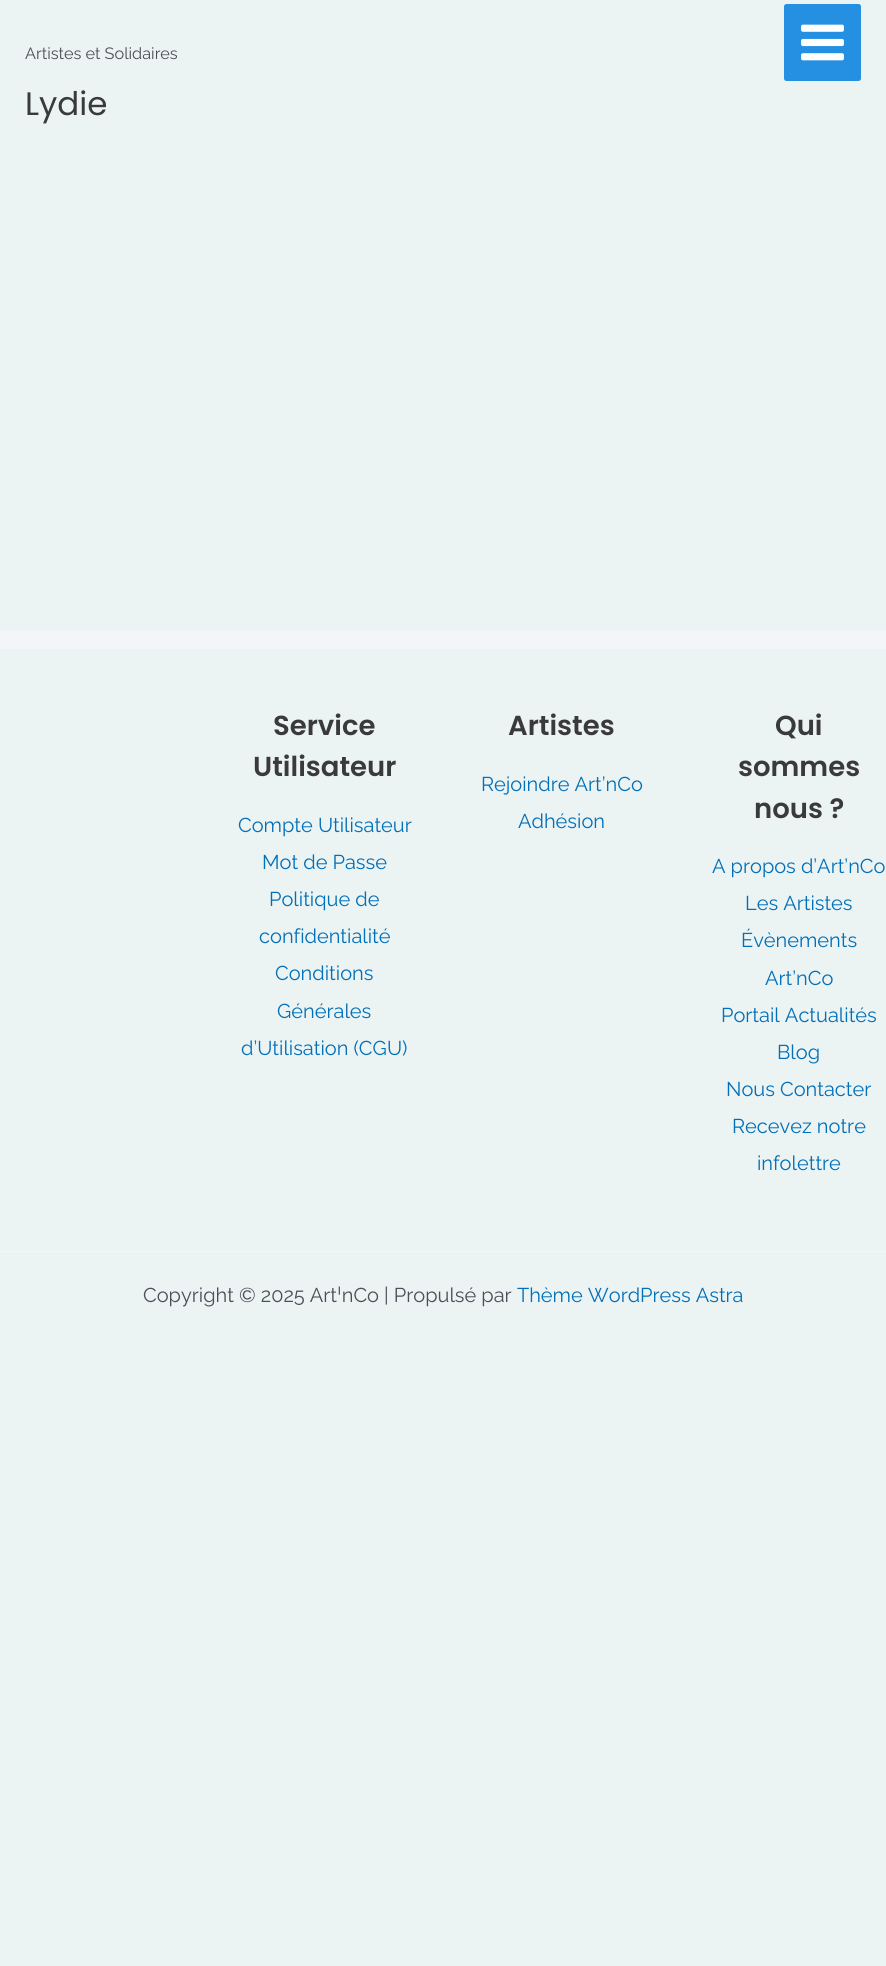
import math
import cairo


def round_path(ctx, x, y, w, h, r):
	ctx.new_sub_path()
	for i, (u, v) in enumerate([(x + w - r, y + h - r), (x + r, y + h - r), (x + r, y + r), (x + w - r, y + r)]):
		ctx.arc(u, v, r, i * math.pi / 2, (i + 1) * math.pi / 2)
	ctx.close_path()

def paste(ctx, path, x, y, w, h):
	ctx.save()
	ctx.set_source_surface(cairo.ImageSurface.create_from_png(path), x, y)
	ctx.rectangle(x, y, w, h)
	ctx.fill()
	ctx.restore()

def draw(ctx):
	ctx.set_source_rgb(0.925, 0.953, 0.953)
	ctx.paint()
	ctx.select_font_face('Raleway')
	ctx.set_font_size(16.25)
	ctx.set_source_rgb(0.294, 0.31, 0.345)
	ctx.move_to(25, 59)
	ctx.show_text('Artistes et Solidaires')
	ctx.set_source_rgb(0.145, 0.565, 0.882)
	round_path(ctx, 784, 4, 77, 77, 2.5)
	ctx.fill()
	paste(ctx, 'media/1.png', 801, 24, 43, 37)
	ctx.select_font_face('Poppins')
	ctx.set_font_size(32.5)
	ctx.set_source_rgb(0.227, 0.227, 0.227)
	ctx.move_to(25, 115)
	ctx.show_text('Lydie')
	ctx.set_source_rgb(0.949, 0.961, 0.969)
	ctx.rectangle(0, 630, 886, 19)
	ctx.fill()
	ctx.select_font_face('Poppins SemiBold')
	ctx.set_font_size(27.5)
	ctx.set_source_rgb(0.227, 0.227, 0.227)
	ctx.move_to(273, 735)
	ctx.show_text('Service')
	ctx.move_to(253, 776)
	ctx.show_text('Utilisateur')
	ctx.select_font_face('Raleway')
	ctx.set_font_size(20)
	ctx.set_source_rgb(0.004, 0.439, 0.725)
	for x, y, s in [
		(238, 832, 'Compte Utilisateur'),
		(262, 869, 'Mot de Passe'),
		(269, 906, 'Politique de'),
		(259, 943, 'confidentialité'),
		(275, 980, 'Conditions'),
		(277, 1018, 'Générales'),
		(241, 1055, 'd’Utilisation (CGU)'),
	]:
		ctx.move_to(x, y)
		ctx.show_text(s)
	ctx.select_font_face('Poppins SemiBold')
	ctx.set_font_size(27.5)
	ctx.set_source_rgb(0.227, 0.227, 0.227)
	ctx.move_to(508, 735)
	ctx.show_text('Artistes')
	ctx.select_font_face('Raleway')
	ctx.set_font_size(20)
	ctx.set_source_rgb(0.004, 0.439, 0.725)
	ctx.move_to(481, 791)
	ctx.show_text('Rejoindre Art’nCo')
	ctx.move_to(518, 828)
	ctx.show_text('Adhésion')
	ctx.select_font_face('Poppins SemiBold')
	ctx.set_font_size(27.5)
	ctx.set_source_rgb(0.227, 0.227, 0.227)
	for x, y, s in [
		(775, 735, 'Qui'),
		(738, 776, 'sommes'),
		(754, 818, 'nous ?'),
	]:
		ctx.move_to(x, y)
		ctx.show_text(s)
	ctx.select_font_face('Raleway')
	ctx.set_font_size(20)
	ctx.set_source_rgb(0.004, 0.439, 0.725)
	for x, y, s in [
		(712, 873, 'A propos d’Art’nCo'),
		(745, 910, 'Les Artistes'),
		(741, 947, 'Évènements'),
		(765, 985, 'Art’nCo'),
		(721, 1022, 'Portail Actualités'),
		(777, 1059, 'Blog'),
		(726, 1096, 'Nous Contacter'),
		(732, 1133, 'Recevez notre'),
		(757, 1170, 'infolettre'),
	]:
		ctx.move_to(x, y)
		ctx.show_text(s)
	ctx.set_source_rgb(0.949, 0.961, 0.969)
	ctx.rectangle(0, 1251, 886, 1)
	ctx.fill()
	ctx.set_source_rgb(0.294, 0.31, 0.345)
	ctx.move_to(143, 1302)
	ctx.show_text('Copyright © 2025 ArtˈnCo | Propulsé par')
	ctx.set_source_rgb(0.004, 0.439, 0.725)
	ctx.move_to(517, 1302)
	ctx.show_text('Thème WordPress Astra')


surface = cairo.ImageSurface(cairo.FORMAT_RGB24, 886, 1966)
ctx = cairo.Context(surface)
options = cairo.FontOptions()
options.set_hint_metrics(cairo.HINT_METRICS_OFF)
options.set_hint_style(cairo.HINT_STYLE_NONE)
ctx.set_font_options(options)
ctx.set_miter_limit(4)
draw(ctx)
surface.write_to_png('image.png')
